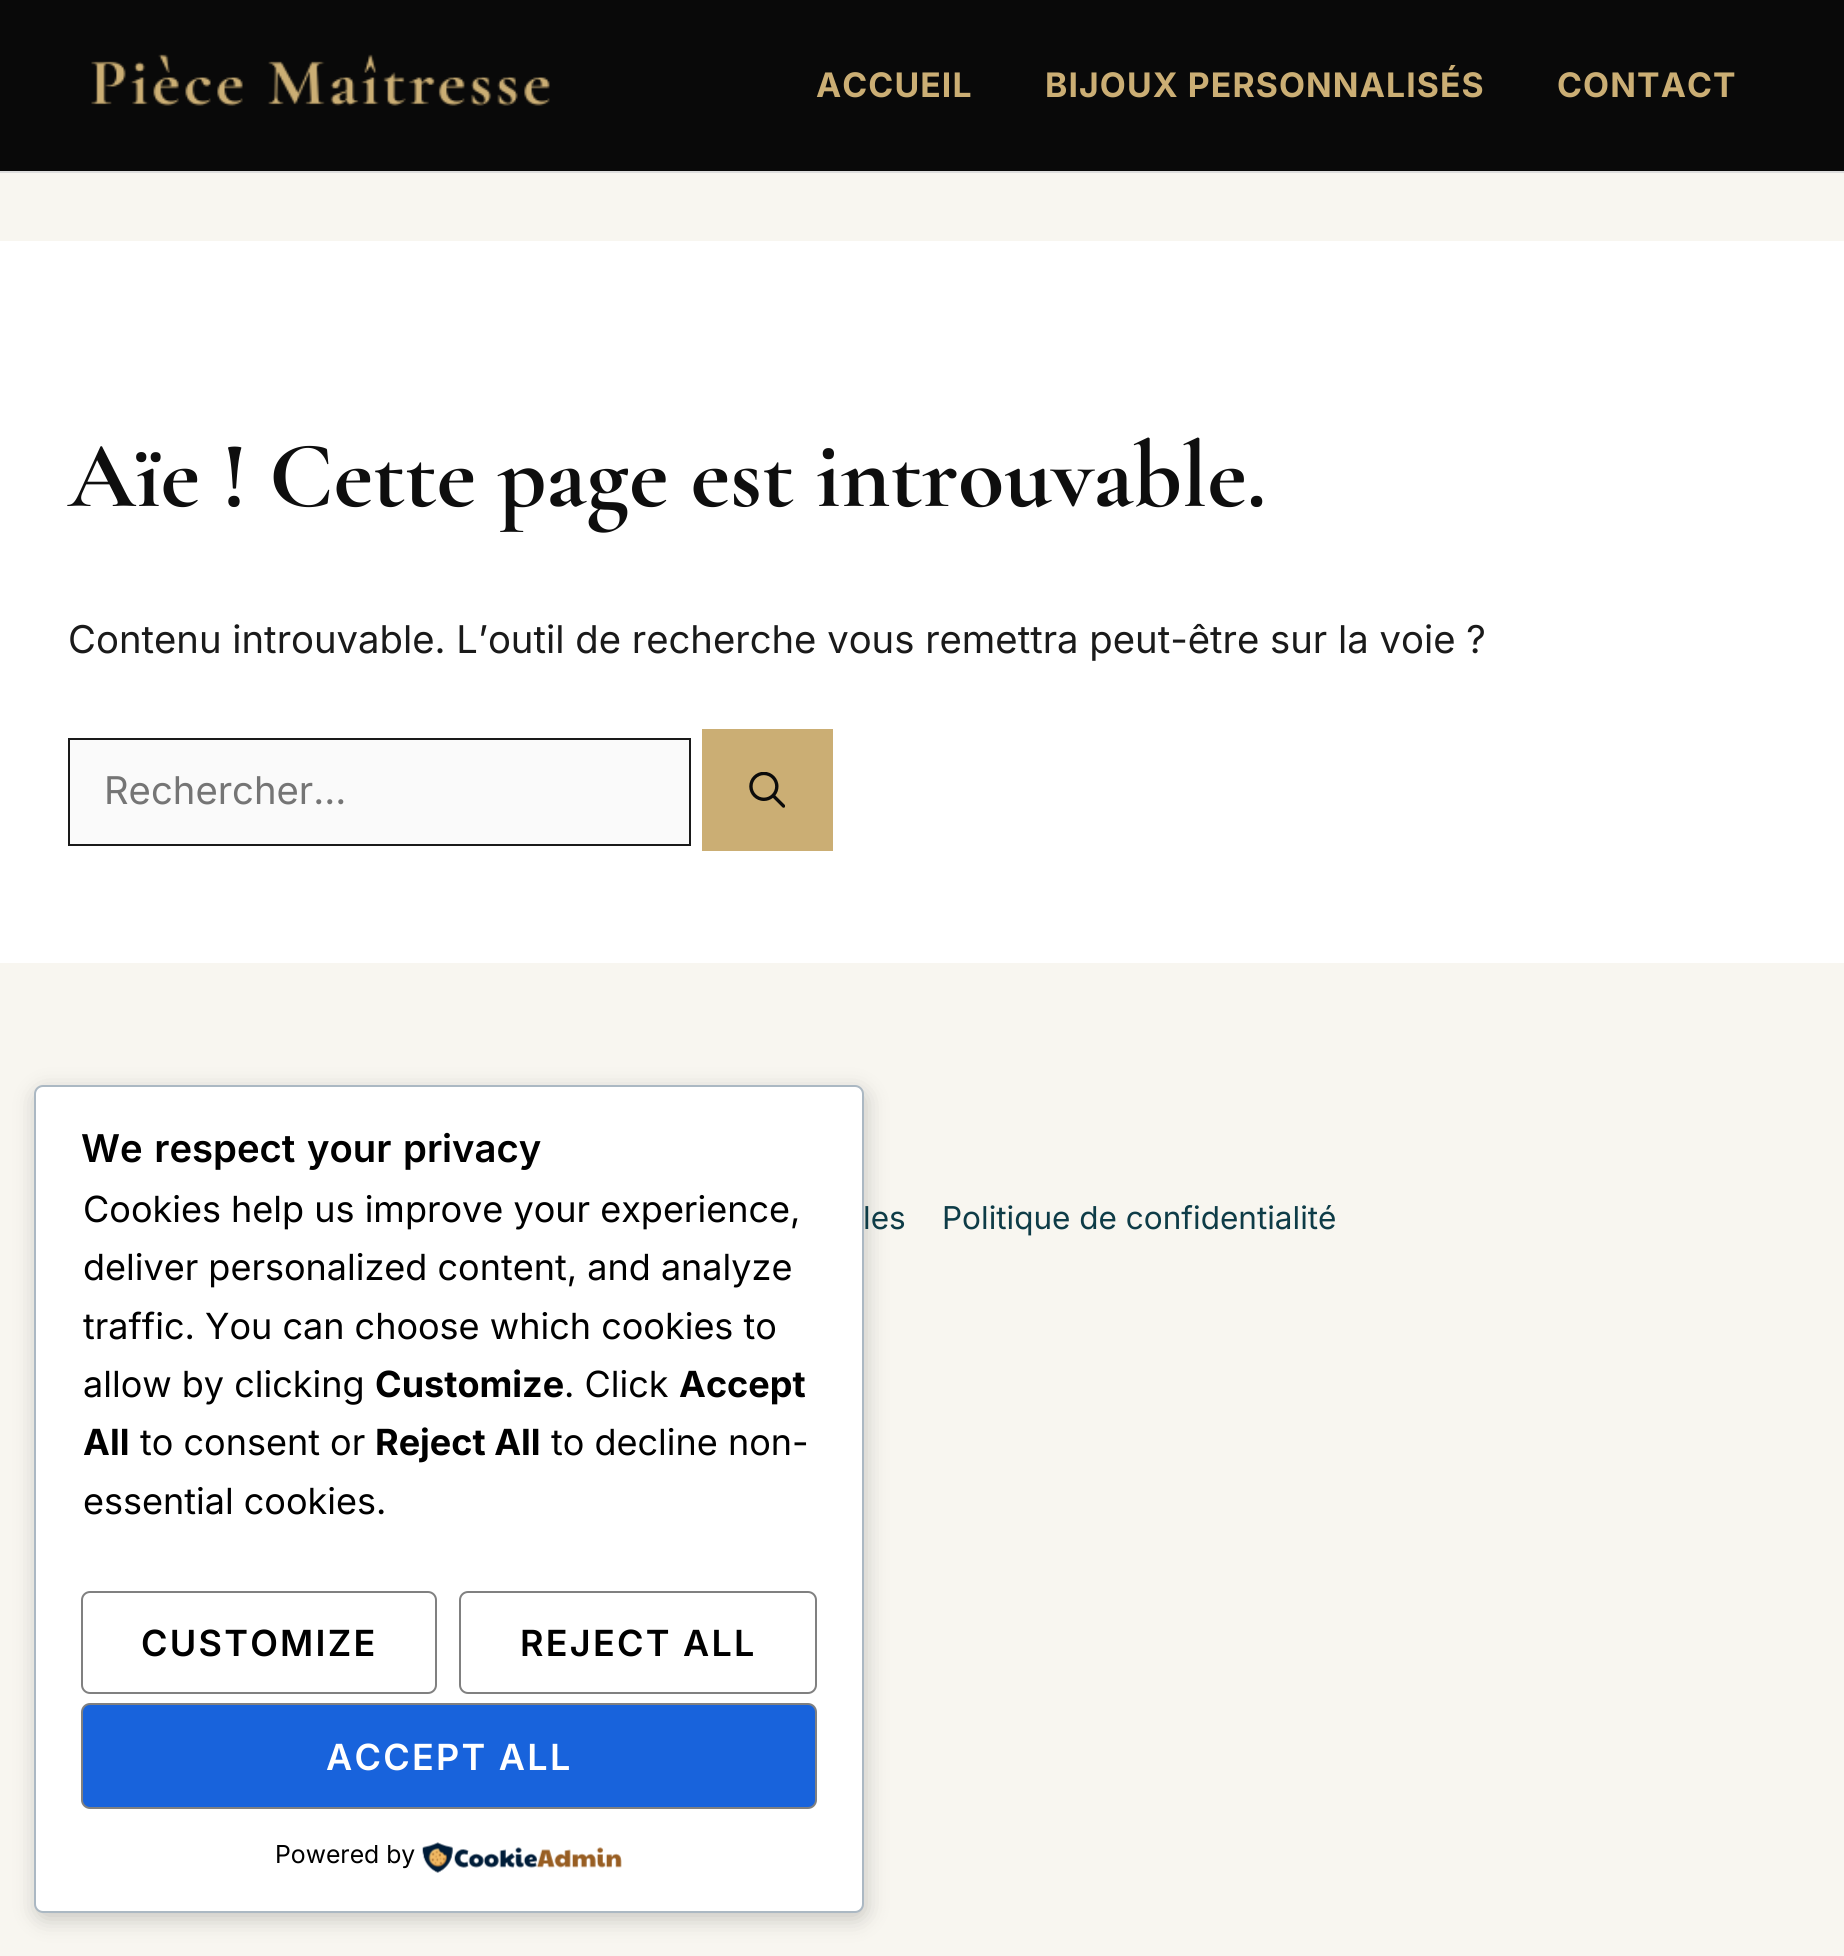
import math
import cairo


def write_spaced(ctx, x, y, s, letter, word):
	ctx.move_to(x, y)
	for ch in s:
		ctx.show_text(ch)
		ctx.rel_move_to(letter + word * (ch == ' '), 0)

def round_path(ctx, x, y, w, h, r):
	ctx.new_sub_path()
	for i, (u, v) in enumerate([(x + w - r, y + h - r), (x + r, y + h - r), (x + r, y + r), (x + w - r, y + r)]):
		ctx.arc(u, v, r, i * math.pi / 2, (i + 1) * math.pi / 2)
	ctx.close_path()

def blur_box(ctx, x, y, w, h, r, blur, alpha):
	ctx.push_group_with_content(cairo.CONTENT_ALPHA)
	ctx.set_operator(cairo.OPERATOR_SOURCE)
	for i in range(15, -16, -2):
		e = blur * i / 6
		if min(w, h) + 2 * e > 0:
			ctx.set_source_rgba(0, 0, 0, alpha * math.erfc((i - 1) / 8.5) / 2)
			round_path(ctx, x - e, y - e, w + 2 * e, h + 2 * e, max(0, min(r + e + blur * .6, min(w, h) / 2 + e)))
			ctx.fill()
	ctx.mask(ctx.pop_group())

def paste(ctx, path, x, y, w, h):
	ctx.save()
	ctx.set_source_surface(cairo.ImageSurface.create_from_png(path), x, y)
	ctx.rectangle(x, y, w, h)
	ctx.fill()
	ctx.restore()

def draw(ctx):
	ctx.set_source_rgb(0.969, 0.961, 0.941)
	ctx.paint()
	ctx.set_source_rgb(0.039, 0.039, 0.039)
	ctx.rectangle(0, 0, 1844, 171)
	ctx.fill()
	ctx.set_source_rgb(0.867, 0.867, 0.867)
	ctx.rectangle(0, 171, 1844, 2)
	ctx.fill()
	paste(ctx, 'media/1.png', 91, 54, 459, 52)
	ctx.select_font_face('Inter', cairo.FONT_SLANT_NORMAL, cairo.FONT_WEIGHT_BOLD)
	ctx.set_font_size(33.75)
	ctx.set_source_rgb(0.796, 0.682, 0.455)
	for x, y, s in [
		(816, 97, 'ACCUEIL'),
		(1045, 97, 'BIJOUX PERSONNALISÉS'),
		(1557, 97, 'CONTACT'),
	]:
		write_spaced(ctx, x, y, s, 1.1, 0)
	ctx.set_source_rgb(1, 1, 1)
	ctx.rectangle(0, 241, 1844, 722)
	ctx.fill()
	ctx.select_font_face('Cormorant Garamond', cairo.FONT_SLANT_NORMAL, cairo.FONT_WEIGHT_BOLD)
	ctx.set_font_size(94.5)
	ctx.set_source_rgb(0.055, 0.055, 0.055)
	ctx.move_to(68, 506)
	ctx.show_text('Aïe ! Cette page est introuvable.')
	ctx.select_font_face('Inter')
	ctx.set_font_size(38.25)
	ctx.set_source_rgb(0.102, 0.102, 0.102)
	ctx.move_to(68, 653)
	ctx.show_text('Contenu introuvable. L’outil de recherche vous remettra peut-être sur la voie ?')
	ctx.set_source_rgb(0.98, 0.98, 0.98)
	ctx.rectangle(69, 739, 621, 106)
	ctx.fill_preserve()
	ctx.set_source_rgb(0.102, 0.102, 0.102)
	ctx.stroke()
	ctx.set_source_rgb(0.459, 0.459, 0.459)
	ctx.move_to(104, 804)
	ctx.show_text('Rechercher…')
	ctx.set_source_rgb(0.796, 0.682, 0.455)
	ctx.rectangle(702, 729, 131, 122)
	ctx.fill()
	paste(ctx, 'media/2.png', 749, 772, 36, 36)
	ctx.set_source_rgb(0, 0, 0)
	blur_box(ctx, 36, 1091, 830, 828, 9, 11, 0.2)
	ctx.set_source_rgb(1, 1, 1)
	round_path(ctx, 35, 1086, 828, 826, 8)
	ctx.fill_preserve()
	ctx.set_source_rgb(0.671, 0.722, 0.765)
	ctx.stroke()
	ctx.select_font_face('Inter SemiBold')
	ctx.set_source_rgb(0, 0, 0)
	write_spaced(ctx, 81, 1162, 'We respect your privacy', 0, 2)
	ctx.select_font_face('Inter')
	ctx.set_font_size(36)
	for x, y, s in [
		(83, 1222, 'Cookies help us improve your experience,'),
		(83, 1280, 'deliver personalized content, and analyze'),
		(83, 1339, 'traffic. You can choose which cookies to'),
		(83, 1397, 'allow by clicking'),
	]:
		ctx.move_to(x, y)
		ctx.show_text(s)
	ctx.select_font_face('Inter', cairo.FONT_SLANT_NORMAL, cairo.FONT_WEIGHT_BOLD)
	ctx.move_to(375, 1397)
	ctx.show_text('Customize')
	ctx.select_font_face('Inter')
	ctx.move_to(564, 1397)
	ctx.show_text('. Click')
	ctx.select_font_face('Inter', cairo.FONT_SLANT_NORMAL, cairo.FONT_WEIGHT_BOLD)
	ctx.move_to(679, 1397)
	ctx.show_text('Accept')
	ctx.move_to(83, 1455)
	ctx.show_text('All')
	ctx.select_font_face('Inter')
	ctx.move_to(140, 1455)
	ctx.show_text('to consent or')
	ctx.select_font_face('Inter', cairo.FONT_SLANT_NORMAL, cairo.FONT_WEIGHT_BOLD)
	ctx.move_to(375, 1455)
	ctx.show_text('Reject All')
	ctx.select_font_face('Inter')
	ctx.move_to(551, 1455)
	ctx.show_text('to decline non-')
	ctx.move_to(83, 1514)
	ctx.show_text('essential cookies.')
	round_path(ctx, 82, 1592, 354, 101, 8)
	ctx.set_source_rgb(0.502, 0.502, 0.502)
	ctx.stroke()
	ctx.select_font_face('Inter SemiBold')
	ctx.set_source_rgb(0, 0, 0)
	write_spaced(ctx, 141, 1656, 'CUSTOMIZE', 2.25, 0)
	round_path(ctx, 460, 1592, 356, 101, 8)
	ctx.set_source_rgb(0.502, 0.502, 0.502)
	ctx.stroke()
	ctx.set_source_rgb(0, 0, 0)
	write_spaced(ctx, 520, 1656, 'REJECT ALL', 2.25, 0)
	ctx.set_source_rgb(0.094, 0.388, 0.863)
	round_path(ctx, 82, 1704, 734, 104, 8)
	ctx.fill_preserve()
	ctx.set_source_rgb(0.502, 0.502, 0.502)
	ctx.stroke()
	ctx.set_source_rgb(1, 1, 1)
	write_spaced(ctx, 326, 1770, 'ACCEPT ALL', 2.25, 0)
	ctx.select_font_face('Inter')
	ctx.set_font_size(24.75)
	ctx.set_source_rgb(0, 0, 0)
	ctx.move_to(275, 1863)
	ctx.show_text('Powered by')
	paste(ctx, 'media/3.png', 422, 1842, 200, 31)
	ctx.set_font_size(31.5)
	ctx.set_source_rgb(0.055, 0.235, 0.278)
	ctx.move_to(863, 1229)
	ctx.show_text('les')
	ctx.move_to(942, 1229)
	ctx.show_text('Politique de confidentialité')


surface = cairo.ImageSurface(cairo.FORMAT_RGB24, 1844, 1956)
ctx = cairo.Context(surface)
options = cairo.FontOptions()
options.set_hint_metrics(cairo.HINT_METRICS_OFF)
options.set_hint_style(cairo.HINT_STYLE_NONE)
ctx.set_font_options(options)
ctx.set_miter_limit(4)
draw(ctx)
surface.write_to_png('image.png')
